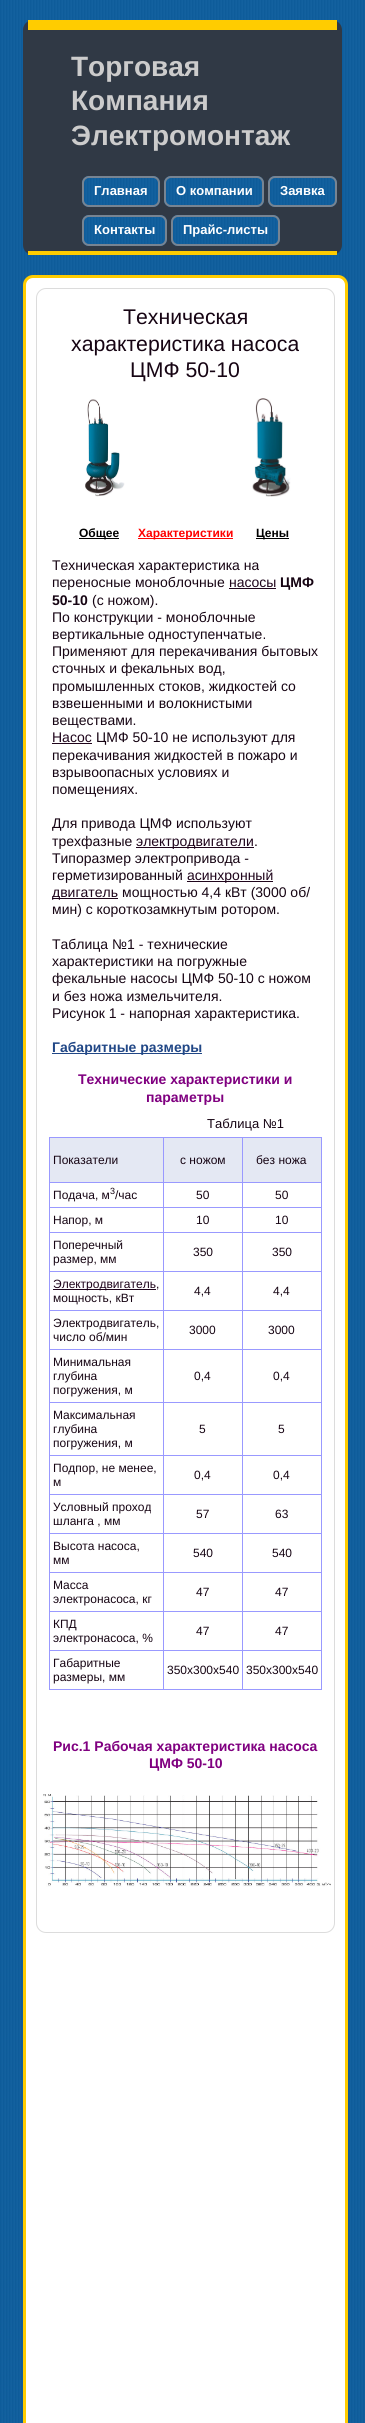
import math
import cairo


def round_path(ctx, x, y, w, h, r):
	ctx.new_sub_path()
	for i, (u, v) in enumerate([(x + w - r, y + h - r), (x + r, y + h - r), (x + r, y + r), (x + w - r, y + r)]):
		ctx.arc(u, v, r, i * math.pi / 2, (i + 1) * math.pi / 2)
	ctx.close_path()

def paste(ctx, path, x, y, w, h):
	ctx.save()
	ctx.set_source_surface(cairo.ImageSurface.create_from_png(path), x, y)
	ctx.rectangle(x, y, w, h)
	ctx.fill()
	ctx.restore()

def draw(ctx):
	ctx.set_source_rgb(1, 1, 1)
	ctx.paint()
	paste(ctx, 'media/1.png', 0, 0, 365, 2423)
	ctx.set_source_rgb(0.188, 0.224, 0.271)
	round_path(ctx, 23, 20, 319, 235, 10)
	ctx.fill()
	ctx.set_source_rgb(1, 0.8, 0)
	ctx.rectangle(28, 20, 309, 10)
	ctx.fill()
	ctx.rectangle(28, 251, 309, 4)
	ctx.fill()
	ctx.select_font_face('Liberation Sans', cairo.FONT_SLANT_NORMAL, cairo.FONT_WEIGHT_BOLD)
	ctx.set_font_size(28)
	ctx.set_source_rgb(0.8, 0.8, 0.8)
	for x, y, s in [
		(71, 76, 'Торговая'),
		(71, 110, 'Компания'),
		(71, 145, 'Электромонтаж'),
	]:
		ctx.move_to(x, y)
		ctx.show_text(s)
	paste(ctx, 'media/2.png', 82, 176, 78, 31)
	round_path(ctx, 83, 177, 76, 29, 6)
	ctx.set_source_rgb(0.467, 0.518, 0.573)
	ctx.stroke()
	ctx.set_font_size(13)
	ctx.set_source_rgb(1, 1, 1)
	ctx.move_to(94, 195)
	ctx.show_text('Главная')
	paste(ctx, 'media/3.png', 164, 176, 100, 31)
	round_path(ctx, 165, 177, 98, 29, 6)
	ctx.set_source_rgb(0.467, 0.518, 0.573)
	ctx.stroke()
	ctx.set_source_rgb(1, 1, 1)
	ctx.move_to(176, 195)
	ctx.show_text('О компании')
	paste(ctx, 'media/4.png', 268, 176, 69, 31)
	round_path(ctx, 269, 177, 67, 29, 6)
	ctx.set_source_rgb(0.467, 0.518, 0.573)
	ctx.stroke()
	ctx.set_source_rgb(1, 1, 1)
	ctx.move_to(280, 195)
	ctx.show_text('Заявка')
	paste(ctx, 'media/5.png', 82, 215, 85, 31)
	round_path(ctx, 83, 216, 83, 29, 6)
	ctx.set_source_rgb(0.467, 0.518, 0.573)
	ctx.stroke()
	ctx.set_source_rgb(1, 1, 1)
	ctx.move_to(94, 234)
	ctx.show_text('Контакты')
	paste(ctx, 'media/6.png', 171, 215, 109, 31)
	round_path(ctx, 172, 216, 107, 29, 6)
	ctx.set_source_rgb(0.467, 0.518, 0.573)
	ctx.stroke()
	ctx.set_source_rgb(1, 1, 1)
	ctx.move_to(183, 234)
	ctx.show_text('Прайс-листы')
	round_path(ctx, 24.5, 276.5, 322, 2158, 8.5)
	ctx.fill_preserve()
	ctx.set_source_rgb(1, 0.8, 0)
	ctx.set_line_width(3)
	ctx.stroke()
	round_path(ctx, 36.5, 288.5, 298, 1644, 9.5)
	ctx.set_source_rgb(0.863, 0.863, 0.863)
	ctx.set_line_width(1)
	ctx.stroke()
	ctx.select_font_face('Liberation Sans')
	ctx.set_font_size(21.25)
	ctx.set_source_rgb(0.086, 0.016, 0.075)
	for x, y, s in [
		(123, 324, 'Техническая'),
		(71, 351, 'характеристика насоса'),
		(130, 377, 'ЦМФ 50-10'),
	]:
		ctx.move_to(x, y)
		ctx.show_text(s)
	paste(ctx, 'media/7.png', 85, 399, 40, 98)
	paste(ctx, 'media/8.png', 252, 398, 39, 99)
	ctx.set_source_rgb(0, 0, 0)
	ctx.rectangle(79, 538, 40, 1)
	ctx.fill()
	ctx.select_font_face('Liberation Sans', cairo.FONT_SLANT_NORMAL, cairo.FONT_WEIGHT_BOLD)
	ctx.set_font_size(12)
	ctx.move_to(79, 537)
	ctx.show_text('Общее')
	ctx.set_source_rgb(1, 0, 0)
	ctx.rectangle(138, 538, 95, 1)
	ctx.fill()
	ctx.move_to(138, 537)
	ctx.show_text('Характеристики')
	ctx.set_source_rgb(0, 0, 0)
	ctx.rectangle(256, 538, 33, 1)
	ctx.fill()
	ctx.move_to(256, 537)
	ctx.show_text('Цены')
	ctx.select_font_face('Liberation Sans')
	ctx.set_font_size(14)
	ctx.set_source_rgb(0.086, 0.016, 0.075)
	ctx.move_to(52, 570)
	ctx.show_text('Техническая характеристика на')
	ctx.move_to(52, 587)
	ctx.show_text('переносные моноблочные')
	ctx.set_source_rgb(0.122, 0.016, 0.106)
	ctx.move_to(229, 587)
	ctx.show_text('насосы')
	ctx.rectangle(229, 588, 47, 1)
	ctx.fill()
	ctx.select_font_face('Liberation Sans', cairo.FONT_SLANT_NORMAL, cairo.FONT_WEIGHT_BOLD)
	ctx.set_source_rgb(0.086, 0.016, 0.075)
	ctx.move_to(280, 587)
	ctx.show_text('ЦМФ')
	ctx.move_to(52, 605)
	ctx.show_text('50-10')
	ctx.select_font_face('Liberation Sans')
	for x, y, s in [
		(92, 605, '(с ножом).'),
		(52, 622, 'По конструкции - моноблочные'),
		(52, 639, 'вертикальные одноступенчатые.'),
		(52, 656, 'Применяют для перекачивания бытовых'),
		(52, 673, 'сточных и фекальных вод,'),
		(52, 691, 'промышленных стоков, жидкостей со'),
		(52, 708, 'взвешенными и волокнистыми'),
		(52, 725, 'веществами.'),
	]:
		ctx.move_to(x, y)
		ctx.show_text(s)
	ctx.set_source_rgb(0.122, 0.016, 0.106)
	ctx.move_to(52, 742)
	ctx.show_text('Насос')
	ctx.rectangle(52, 743, 40, 1)
	ctx.fill()
	ctx.set_source_rgb(0.086, 0.016, 0.075)
	for x, y, s in [
		(96, 742, 'ЦМФ 50-10 не используют для'),
		(52, 760, 'перекачивания жидкостей в пожаро и'),
		(52, 777, 'взрывоопасных условиях и'),
		(52, 794, 'помещениях.'),
		(52, 828, 'Для привода ЦМФ используют'),
		(52, 846, 'трехфазные'),
	]:
		ctx.move_to(x, y)
		ctx.show_text(s)
	ctx.set_source_rgb(0.122, 0.016, 0.106)
	ctx.rectangle(136, 847, 118, 1)
	ctx.fill()
	ctx.move_to(136, 846)
	ctx.show_text('электродвигатели')
	ctx.set_source_rgb(0.086, 0.016, 0.075)
	for x, y, s in [
		(254, 846, '.'),
		(52, 863, 'Типоразмер электропривода -'),
		(52, 880, 'герметизированный'),
	]:
		ctx.move_to(x, y)
		ctx.show_text(s)
	ctx.set_source_rgb(0.122, 0.016, 0.106)
	ctx.rectangle(187, 881, 86, 1)
	ctx.fill()
	ctx.move_to(187, 880)
	ctx.show_text('асинхронный')
	ctx.rectangle(52, 898, 66, 1)
	ctx.fill()
	ctx.move_to(52, 897)
	ctx.show_text('двигатель')
	ctx.set_source_rgb(0.086, 0.016, 0.075)
	for x, y, s in [
		(122, 897, 'мощностью 4,4 кВт (3000 об/'),
		(52, 914, 'мин) с короткозамкнутым ротором.'),
		(52, 949, 'Таблица №1 - технические'),
		(52, 966, 'характеристики на погружные'),
		(52, 983, 'фекальные насосы ЦМФ 50-10 с ножом'),
		(52, 1001, 'и без ножа измельчителя.'),
		(52, 1018, 'Рисунок 1 - напорная характеристика.'),
	]:
		ctx.move_to(x, y)
		ctx.show_text(s)
	ctx.set_source_rgb(0.129, 0.278, 0.525)
	ctx.rectangle(52, 1053, 150, 1)
	ctx.fill()
	ctx.select_font_face('Liberation Sans', cairo.FONT_SLANT_NORMAL, cairo.FONT_WEIGHT_BOLD)
	ctx.move_to(52, 1052)
	ctx.show_text('Габаритные размеры')
	ctx.set_source_rgb(0.502, 0, 0.502)
	ctx.move_to(78, 1084)
	ctx.show_text('Технические характеристики и')
	ctx.move_to(146, 1102)
	ctx.show_text('параметры')
	ctx.select_font_face('Liberation Sans')
	ctx.set_font_size(13)
	ctx.set_source_rgb(0.086, 0.016, 0.075)
	ctx.move_to(207, 1128)
	ctx.show_text('Таблица №1')
	ctx.set_source_rgb(0.6, 0.6, 1)
	ctx.rectangle(49, 1137, 273, 1)
	ctx.rectangle(321, 1137, 1, 553)
	ctx.rectangle(49, 1689, 273, 1)
	ctx.rectangle(49, 1137, 1, 553)
	ctx.fill()
	ctx.set_source_rgb(0.894, 0.91, 0.953)
	ctx.rectangle(50, 1138, 271, 44)
	ctx.fill()
	ctx.set_font_size(12)
	ctx.set_source_rgb(0.086, 0.016, 0.075)
	ctx.move_to(53, 1164)
	ctx.show_text('Показатели')
	ctx.set_source_rgb(0.6, 0.6, 1)
	ctx.rectangle(242, 1182, 80, 1)
	ctx.rectangle(242, 1207, 80, 1)
	ctx.rectangle(242, 1232, 80, 1)
	ctx.rectangle(242, 1271, 80, 1)
	ctx.rectangle(242, 1310, 80, 1)
	ctx.rectangle(242, 1349, 80, 1)
	ctx.rectangle(242, 1402, 80, 1)
	ctx.rectangle(242, 1455, 80, 1)
	ctx.rectangle(242, 1494, 80, 1)
	ctx.rectangle(242, 1533, 80, 1)
	ctx.rectangle(242, 1572, 80, 1)
	ctx.rectangle(242, 1611, 80, 1)
	ctx.rectangle(242, 1650, 80, 1)
	ctx.rectangle(242, 1650, 1, 40)
	ctx.rectangle(163, 1650, 80, 1)
	ctx.rectangle(242, 1611, 1, 40)
	ctx.rectangle(163, 1611, 80, 1)
	ctx.rectangle(242, 1572, 1, 40)
	ctx.rectangle(163, 1572, 80, 1)
	ctx.rectangle(242, 1533, 1, 40)
	ctx.rectangle(163, 1533, 80, 1)
	ctx.rectangle(242, 1494, 1, 40)
	ctx.rectangle(163, 1494, 80, 1)
	ctx.rectangle(242, 1455, 1, 40)
	ctx.rectangle(163, 1455, 80, 1)
	ctx.rectangle(242, 1402, 1, 54)
	ctx.rectangle(163, 1402, 80, 1)
	ctx.rectangle(242, 1349, 1, 54)
	ctx.rectangle(163, 1349, 80, 1)
	ctx.rectangle(242, 1310, 1, 40)
	ctx.rectangle(163, 1310, 80, 1)
	ctx.rectangle(242, 1271, 1, 40)
	ctx.rectangle(163, 1271, 80, 1)
	ctx.rectangle(242, 1232, 1, 40)
	ctx.rectangle(163, 1232, 80, 1)
	ctx.rectangle(242, 1207, 1, 26)
	ctx.rectangle(163, 1207, 80, 1)
	ctx.rectangle(242, 1182, 1, 26)
	ctx.rectangle(163, 1182, 80, 1)
	ctx.rectangle(163, 1650, 1, 40)
	ctx.rectangle(49, 1650, 115, 1)
	ctx.rectangle(163, 1611, 1, 40)
	ctx.rectangle(49, 1611, 115, 1)
	ctx.rectangle(163, 1572, 1, 40)
	ctx.rectangle(49, 1572, 115, 1)
	ctx.rectangle(163, 1533, 1, 40)
	ctx.rectangle(49, 1533, 115, 1)
	ctx.rectangle(163, 1494, 1, 40)
	ctx.rectangle(49, 1494, 115, 1)
	ctx.rectangle(163, 1455, 1, 40)
	ctx.rectangle(49, 1455, 115, 1)
	ctx.rectangle(163, 1402, 1, 54)
	ctx.rectangle(49, 1402, 115, 1)
	ctx.rectangle(163, 1349, 1, 54)
	ctx.rectangle(49, 1349, 115, 1)
	ctx.rectangle(163, 1310, 1, 40)
	ctx.rectangle(49, 1310, 115, 1)
	ctx.rectangle(163, 1271, 1, 40)
	ctx.rectangle(49, 1271, 115, 1)
	ctx.rectangle(163, 1232, 1, 40)
	ctx.rectangle(49, 1232, 115, 1)
	ctx.rectangle(163, 1207, 1, 26)
	ctx.rectangle(49, 1207, 115, 1)
	ctx.rectangle(163, 1182, 1, 26)
	ctx.rectangle(49, 1182, 115, 1)
	ctx.rectangle(163, 1137, 1, 46)
	ctx.fill()
	ctx.set_source_rgb(0.086, 0.016, 0.075)
	ctx.move_to(180, 1164)
	ctx.show_text('с ножом')
	ctx.set_source_rgb(0.6, 0.6, 1)
	ctx.rectangle(242, 1137, 1, 46)
	ctx.fill()
	ctx.set_source_rgb(0.086, 0.016, 0.075)
	ctx.move_to(256, 1164)
	ctx.show_text('без ножа')
	ctx.move_to(53, 1199)
	ctx.show_text('Подача, м')
	ctx.set_font_size(9)
	ctx.move_to(110, 1194)
	ctx.show_text('3')
	ctx.set_font_size(12)
	for x, y, s in [
		(115, 1199, '/час'),
		(196, 1199, '50'),
		(275, 1199, '50'),
		(53, 1224, 'Напор, м'),
		(196, 1224, '10'),
		(275, 1224, '10'),
		(53, 1249, 'Поперечный'),
		(53, 1263, 'размер, мм'),
		(193, 1256, '350'),
		(272, 1256, '350'),
	]:
		ctx.move_to(x, y)
		ctx.show_text(s)
	ctx.set_source_rgb(0.122, 0.016, 0.106)
	ctx.rectangle(53, 1289, 103, 1)
	ctx.fill()
	ctx.move_to(53, 1288)
	ctx.show_text('Электродвигатель')
	ctx.set_source_rgb(0.086, 0.016, 0.075)
	for x, y, s in [
		(156, 1288, ','),
		(53, 1302, 'мощность, кВт'),
		(194, 1295, '4,4'),
		(273, 1295, '4,4'),
		(53, 1327, 'Электродвигатель,'),
		(53, 1341, 'число об/мин'),
		(189, 1334, '3000'),
		(268, 1334, '3000'),
		(53, 1366, 'Минимальная'),
		(53, 1380, 'глубина'),
		(53, 1394, 'погружения, м'),
		(194, 1380, '0,4'),
		(273, 1380, '0,4'),
		(53, 1419, 'Максимальная'),
		(53, 1433, 'глубина'),
		(53, 1447, 'погружения, м'),
		(199, 1433, '5'),
		(278, 1433, '5'),
		(53, 1472, 'Подпор, не менее,'),
		(53, 1486, 'м'),
		(194, 1479, '0,4'),
		(273, 1479, '0,4'),
		(53, 1511, 'Условный проход'),
		(53, 1525, 'шланга , мм'),
		(196, 1518, '57'),
		(275, 1518, '63'),
		(53, 1550, 'Высота насоса,'),
		(53, 1564, 'мм'),
		(193, 1557, '540'),
		(272, 1557, '540'),
		(53, 1589, 'Масса'),
		(53, 1603, 'электронасоса, кг'),
		(196, 1596, '47'),
		(275, 1596, '47'),
		(53, 1628, 'КПД'),
		(53, 1642, 'электронасоса, %'),
		(196, 1635, '47'),
		(275, 1635, '47'),
		(53, 1667, 'Габаритные'),
		(53, 1681, 'размеры, мм'),
		(167, 1674, '350х300х540'),
		(246, 1674, '350х300х540'),
	]:
		ctx.move_to(x, y)
		ctx.show_text(s)
	ctx.select_font_face('Liberation Sans', cairo.FONT_SLANT_NORMAL, cairo.FONT_WEIGHT_BOLD)
	ctx.set_font_size(14)
	ctx.set_source_rgb(0.502, 0, 0.502)
	ctx.move_to(53, 1751)
	ctx.show_text('Рис.1 Рабочая характеристика насоса')
	ctx.move_to(149, 1768)
	ctx.show_text('ЦМФ 50-10')
	paste(ctx, 'media/9.png', 43, 1794, 288, 93)


surface = cairo.ImageSurface(cairo.FORMAT_RGB24, 365, 2423)
ctx = cairo.Context(surface)
options = cairo.FontOptions()
options.set_hint_metrics(cairo.HINT_METRICS_OFF)
options.set_hint_style(cairo.HINT_STYLE_NONE)
ctx.set_font_options(options)
ctx.set_miter_limit(4)
draw(ctx)
surface.write_to_png('image.png')
